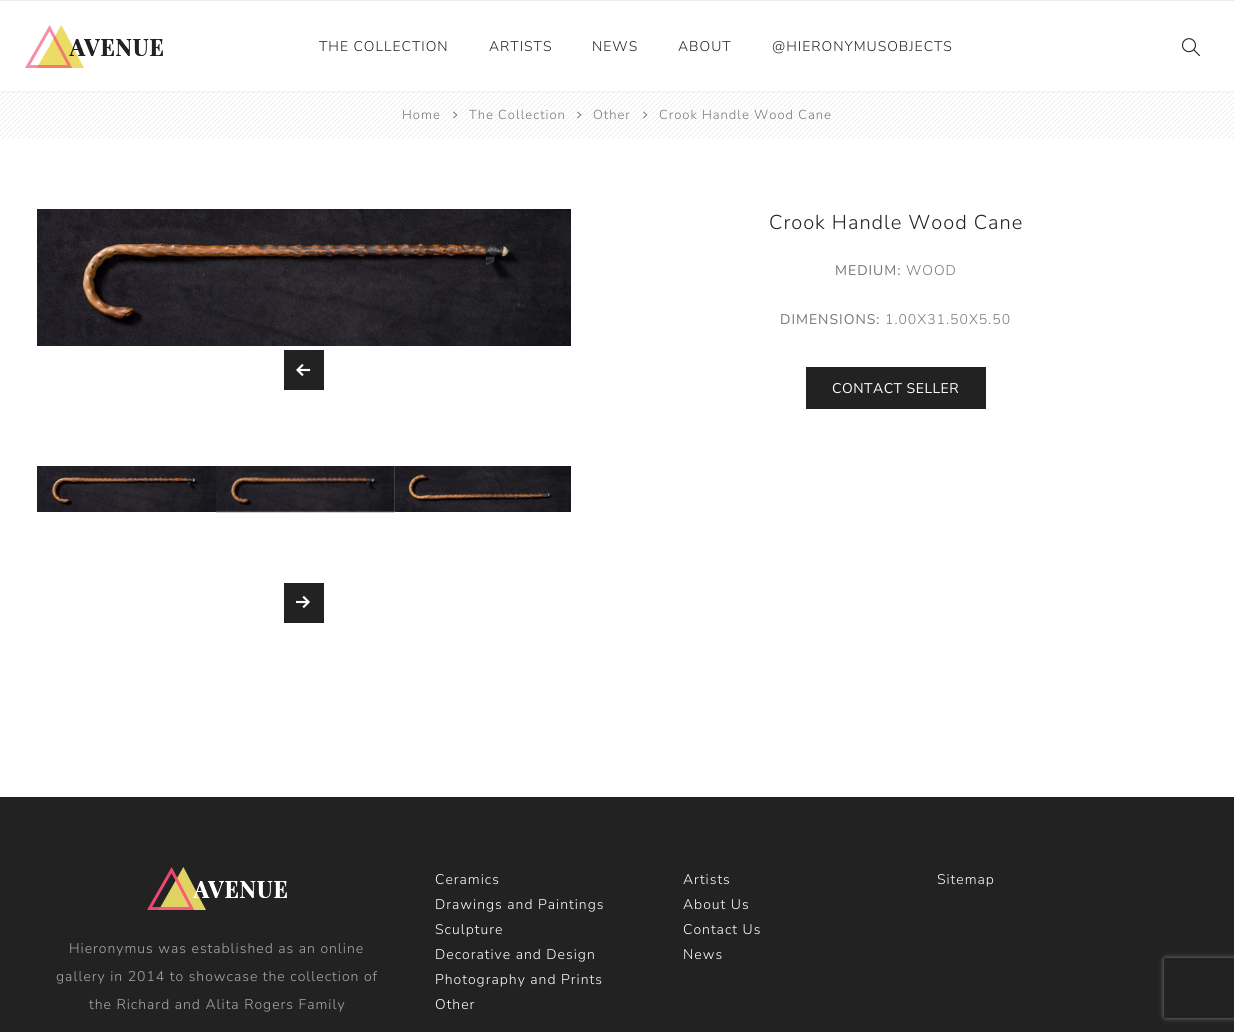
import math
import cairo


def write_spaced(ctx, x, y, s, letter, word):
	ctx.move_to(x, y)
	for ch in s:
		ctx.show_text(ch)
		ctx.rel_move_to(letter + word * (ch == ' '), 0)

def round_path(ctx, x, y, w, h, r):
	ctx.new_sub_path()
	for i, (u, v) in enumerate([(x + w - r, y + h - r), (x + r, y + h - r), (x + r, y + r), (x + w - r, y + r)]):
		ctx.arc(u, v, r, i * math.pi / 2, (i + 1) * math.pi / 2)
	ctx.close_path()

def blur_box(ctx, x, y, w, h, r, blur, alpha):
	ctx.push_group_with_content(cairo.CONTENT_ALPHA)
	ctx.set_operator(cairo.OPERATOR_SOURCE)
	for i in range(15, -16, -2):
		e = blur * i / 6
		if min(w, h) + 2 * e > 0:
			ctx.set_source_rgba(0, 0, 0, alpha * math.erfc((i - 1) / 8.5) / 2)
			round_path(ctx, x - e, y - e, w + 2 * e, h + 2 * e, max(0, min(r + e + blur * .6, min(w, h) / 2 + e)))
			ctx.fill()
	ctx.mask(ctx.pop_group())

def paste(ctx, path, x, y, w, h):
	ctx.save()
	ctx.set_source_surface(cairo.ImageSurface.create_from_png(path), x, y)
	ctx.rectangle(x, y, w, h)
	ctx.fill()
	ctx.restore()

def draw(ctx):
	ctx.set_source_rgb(1, 1, 1)
	ctx.paint()
	ctx.save()
	ctx.rectangle(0, 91, 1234, 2)
	ctx.clip()
	ctx.set_source_rgb(0, 0, 0)
	blur_box(ctx, 0, 0, 1234, 91, 0, 2.5, 0.1)
	ctx.restore()
	ctx.set_source_rgb(0.922, 0.922, 0.922)
	ctx.rectangle(0, 0, 1234, 1)
	ctx.fill()
	paste(ctx, 'media/1.png', 25, 25, 138, 43)
	ctx.select_font_face('Nunito Sans Light')
	ctx.set_font_size(14)
	ctx.set_source_rgb(0.133, 0.133, 0.133)
	for x, y, s in [
		(319, 51, 'THE COLLECTION'),
		(489, 51, 'ARTISTS'),
		(592, 51, 'NEWS'),
		(678, 51, 'ABOUT'),
		(772, 51, '@HIERONYMUSOBJECTS'),
	]:
		write_spaced(ctx, x, y, s, 1, 0)
	paste(ctx, 'media/2.png', 1181, 38, 19, 19)
	paste(ctx, 'media/3.png', 0, 91, 1234, 48)
	ctx.set_font_size(13)
	ctx.set_source_rgb(0.467, 0.467, 0.467)
	write_spaced(ctx, 402, 119, 'Home', 1, 0)
	paste(ctx, 'media/4.png', 453, 111, 5, 8)
	write_spaced(ctx, 469, 119, 'The Collection', 1, 0)
	paste(ctx, 'media/5.png', 577, 111, 5, 8)
	write_spaced(ctx, 593, 119, 'Other', 1, 0)
	paste(ctx, 'media/4.png', 643, 111, 5, 8)
	write_spaced(ctx, 659, 119, 'Crook Handle Wood Cane', 1, 0)
	paste(ctx, 'media/6.png', 37, 209, 534, 137)
	ctx.set_source_rgb(0.133, 0.133, 0.133)
	ctx.rectangle(284, 350, 40, 40)
	ctx.fill()
	paste(ctx, 'media/7.png', 296, 363, 15, 14)
	paste(ctx, 'media/8.png', 37, 466, 179, 46)
	paste(ctx, 'media/9.png', 216, 466, 179, 47)
	paste(ctx, 'media/10.png', 395, 466, 176, 46)
	ctx.rectangle(284, 583, 40, 40)
	ctx.fill()
	paste(ctx, 'media/11.png', 296, 595, 14, 14)
	ctx.set_font_size(20)
	write_spaced(ctx, 769, 229, 'Crook Handle Wood Cane', 1, 0)
	ctx.select_font_face('Nunito Sans')
	ctx.set_font_size(14)
	ctx.set_source_rgb(0.467, 0.467, 0.467)
	write_spaced(ctx, 835, 275, 'MEDIUM:', 1, 0)
	ctx.select_font_face('Nunito Sans Light')
	write_spaced(ctx, 906, 275, 'WOOD', 1, 0)
	ctx.select_font_face('Nunito Sans')
	write_spaced(ctx, 780, 324, 'DIMENSIONS:', 1, 0)
	ctx.select_font_face('Nunito Sans Light')
	write_spaced(ctx, 885, 324, '1.00X31.50X5.50', 1, 0)
	ctx.set_source_rgb(0.133, 0.133, 0.133)
	ctx.rectangle(806, 367, 180, 42)
	ctx.fill()
	ctx.select_font_face('Nunito Sans')
	ctx.set_source_rgb(1, 1, 1)
	write_spaced(ctx, 832, 393, 'CONTACT SELLER', 0.5, 0)
	ctx.set_source_rgb(0.133, 0.133, 0.133)
	ctx.rectangle(0, 797, 1234, 235)
	ctx.fill()
	paste(ctx, 'media/12.png', 147, 867, 140, 43)
	ctx.select_font_face('Nunito Sans Light')
	ctx.set_source_rgb(0.663, 0.663, 0.663)
	for x, y, s in [
		(69, 953, 'Hieronymus was established as an online'),
		(56, 981, 'gallery in 2014 to showcase the collection of'),
		(89, 1009, 'the Richard and Alita Rogers Family'),
	]:
		write_spaced(ctx, x, y, s, 1, 0)
	ctx.set_source_rgb(1, 1, 1)
	for x, y, s in [
		(435, 884, 'Ceramics'),
		(435, 909, 'Drawings and Paintings'),
		(435, 934, 'Sculpture'),
		(435, 959, 'Decorative and Design'),
		(435, 984, 'Photography and Prints'),
		(435, 1009, 'Other'),
		(683, 884, 'Artists'),
		(683, 909, 'About Us'),
		(683, 934, 'Contact Us'),
		(683, 959, 'News'),
		(937, 884, 'Sitemap'),
	]:
		write_spaced(ctx, x, y, s, 1, 0)
	ctx.save()
	ctx.set_fill_rule(cairo.FILL_RULE_EVEN_ODD)
	ctx.new_path()
	ctx.move_to(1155, 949)
	ctx.line_to(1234, 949)
	ctx.line_to(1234, 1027)
	ctx.line_to(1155, 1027)
	ctx.close_path()
	ctx.move_to(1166, 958)
	ctx.line_to(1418, 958)
	ctx.curve_to(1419, 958, 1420, 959, 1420, 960)
	ctx.line_to(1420, 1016)
	ctx.curve_to(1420, 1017, 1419, 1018, 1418, 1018)
	ctx.line_to(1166, 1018)
	ctx.curve_to(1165, 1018, 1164, 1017, 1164, 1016)
	ctx.line_to(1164, 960)
	ctx.curve_to(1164, 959, 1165, 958, 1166, 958)
	ctx.close_path()
	ctx.clip()
	ctx.set_source_rgb(0.502, 0.502, 0.502)
	blur_box(ctx, 1164, 958, 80, 60, 2, 2.5, 1)
	ctx.restore()


surface = cairo.ImageSurface(cairo.FORMAT_RGB24, 1234, 1032)
ctx = cairo.Context(surface)
options = cairo.FontOptions()
options.set_hint_metrics(cairo.HINT_METRICS_OFF)
options.set_hint_style(cairo.HINT_STYLE_NONE)
ctx.set_font_options(options)
ctx.set_miter_limit(4)
draw(ctx)
surface.write_to_png('image.png')
